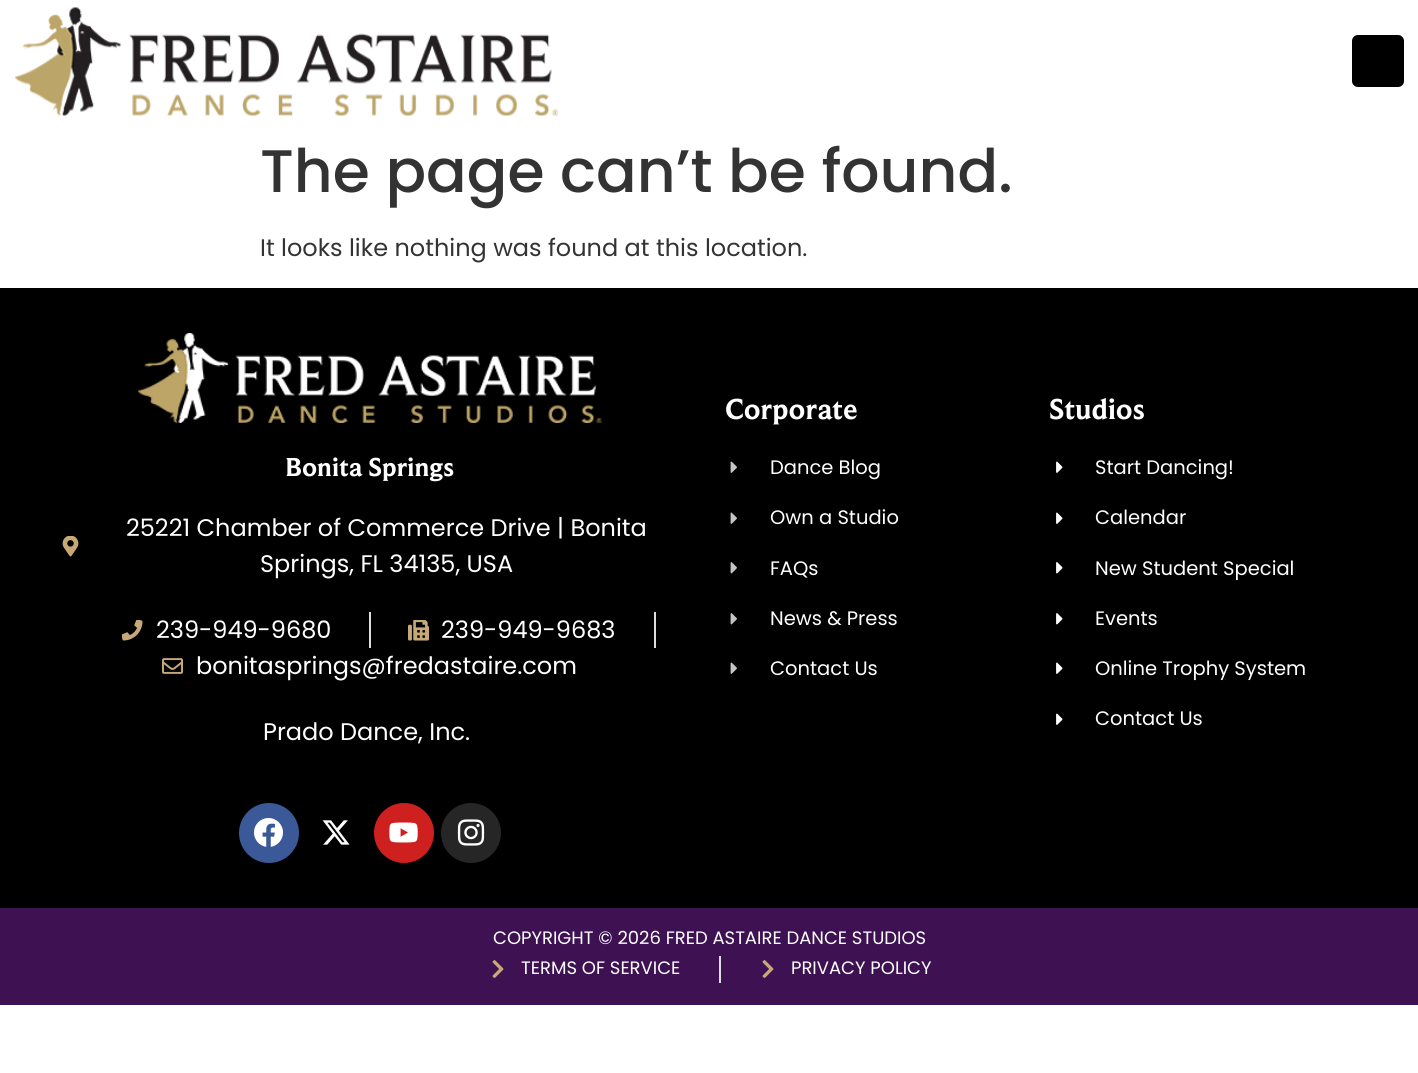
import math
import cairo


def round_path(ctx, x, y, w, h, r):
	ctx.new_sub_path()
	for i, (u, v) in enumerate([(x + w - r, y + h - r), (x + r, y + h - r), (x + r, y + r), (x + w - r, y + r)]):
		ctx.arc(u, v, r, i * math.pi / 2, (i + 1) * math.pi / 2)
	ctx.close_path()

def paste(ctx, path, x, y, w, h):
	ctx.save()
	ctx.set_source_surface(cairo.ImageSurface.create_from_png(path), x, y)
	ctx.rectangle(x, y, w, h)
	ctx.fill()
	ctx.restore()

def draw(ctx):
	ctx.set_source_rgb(1, 1, 1)
	ctx.paint()
	paste(ctx, 'media/1.png', 15, 7, 543, 109)
	ctx.set_source_rgb(0, 0, 0)
	round_path(ctx, 1352, 35, 52, 52, 6)
	ctx.fill()
	ctx.select_font_face('Poppins Medium')
	ctx.set_font_size(60)
	ctx.set_source_rgb(0.2, 0.2, 0.2)
	ctx.move_to(260, 192)
	ctx.show_text('The page can’t be found.')
	ctx.select_font_face('Poppins')
	ctx.set_font_size(24)
	ctx.move_to(260, 256)
	ctx.show_text('It looks like nothing was found at this location.')
	ctx.set_source_rgb(0, 0, 0)
	ctx.rectangle(0, 288, 1418, 620)
	ctx.fill()
	paste(ctx, 'media/2.png', 138, 333, 464, 90)
	ctx.select_font_face('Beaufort', cairo.FONT_SLANT_NORMAL, cairo.FONT_WEIGHT_BOLD)
	ctx.set_font_size(27)
	ctx.set_source_rgb(1, 1, 1)
	ctx.move_to(285, 476)
	ctx.show_text('Bonita Springs')
	paste(ctx, 'media/3.png', 62, 536, 17, 21)
	ctx.select_font_face('Poppins')
	ctx.set_font_size(24)
	ctx.move_to(126, 536)
	ctx.show_text('25221 Chamber of Commerce Drive | Bonita')
	ctx.move_to(260, 572)
	ctx.show_text('Springs, FL 34135, USA')
	paste(ctx, 'media/4.png', 122, 620, 21, 21)
	ctx.move_to(156, 638)
	ctx.show_text('239-949-9680')
	ctx.set_source_rgb(0.867, 0.867, 0.867)
	ctx.rectangle(369, 612, 2, 36)
	ctx.fill()
	paste(ctx, 'media/5.png', 408, 620, 21, 21)
	ctx.set_source_rgb(1, 1, 1)
	ctx.move_to(441, 638)
	ctx.show_text('239-949-9683')
	ctx.set_source_rgb(0.867, 0.867, 0.867)
	ctx.rectangle(654, 612, 2, 36)
	ctx.fill()
	paste(ctx, 'media/6.png', 162, 658, 21, 16)
	ctx.set_source_rgb(1, 1, 1)
	ctx.move_to(196, 674)
	ctx.show_text('bonitasprings@fredastaire.com')
	ctx.move_to(263, 740)
	ctx.show_text('Prado Dance, Inc.')
	ctx.set_source_rgb(0.231, 0.349, 0.596)
	ctx.new_path()
	ctx.arc(269, 833, 30, 0, 2 * math.pi)
	ctx.fill()
	paste(ctx, 'media/7.png', 254, 818, 29, 29)
	paste(ctx, 'media/8.png', 322, 820, 28, 25)
	ctx.set_source_rgb(0.804, 0.125, 0.122)
	ctx.arc(404, 833, 30, 0, 2 * math.pi)
	ctx.fill()
	paste(ctx, 'media/9.png', 389, 822, 29, 21)
	ctx.set_source_rgb(0.149, 0.149, 0.149)
	ctx.arc(471, 833, 30, 0, 2 * math.pi)
	ctx.fill()
	paste(ctx, 'media/10.png', 457, 819, 28, 27)
	ctx.select_font_face('Beaufort', cairo.FONT_SLANT_NORMAL, cairo.FONT_WEIGHT_BOLD)
	ctx.set_font_size(30)
	ctx.set_source_rgb(1, 1, 1)
	ctx.move_to(725, 419)
	ctx.show_text('Corporate')
	paste(ctx, 'media/11.png', 730, 461, 7, 12)
	ctx.select_font_face('Poppins')
	ctx.set_font_size(19.5)
	ctx.move_to(770, 474)
	ctx.show_text('Dance Blog')
	paste(ctx, 'media/11.png', 730, 512, 7, 12)
	ctx.move_to(770, 524)
	ctx.show_text('Own a Studio')
	paste(ctx, 'media/12.png', 730, 562, 7, 12)
	ctx.move_to(770, 575)
	ctx.show_text('FAQs')
	paste(ctx, 'media/12.png', 730, 613, 7, 12)
	ctx.move_to(770, 625)
	ctx.show_text('News & Press')
	paste(ctx, 'media/11.png', 730, 662, 7, 12)
	ctx.move_to(770, 675)
	ctx.show_text('Contact Us')
	ctx.select_font_face('Beaufort', cairo.FONT_SLANT_NORMAL, cairo.FONT_WEIGHT_BOLD)
	ctx.set_font_size(30)
	ctx.move_to(1049, 419)
	ctx.show_text('Studios')
	paste(ctx, 'media/13.png', 1056, 461, 7, 12)
	ctx.select_font_face('Poppins')
	ctx.set_font_size(19.5)
	ctx.move_to(1095, 474)
	ctx.show_text('Start Dancing!')
	paste(ctx, 'media/13.png', 1056, 512, 7, 12)
	ctx.move_to(1095, 524)
	ctx.show_text('Calendar')
	paste(ctx, 'media/14.png', 1056, 562, 7, 12)
	ctx.move_to(1095, 575)
	ctx.show_text('New Student Special')
	paste(ctx, 'media/14.png', 1056, 613, 7, 12)
	ctx.move_to(1095, 625)
	ctx.show_text('Events')
	paste(ctx, 'media/13.png', 1056, 662, 7, 12)
	ctx.move_to(1095, 675)
	ctx.show_text('Online Trophy System')
	paste(ctx, 'media/13.png', 1056, 713, 7, 12)
	ctx.move_to(1095, 725)
	ctx.show_text('Contact Us')
	ctx.set_source_rgb(0.239, 0.067, 0.322)
	ctx.rectangle(0, 908, 1418, 97)
	ctx.fill()
	ctx.set_font_size(18)
	ctx.set_source_rgb(1, 1, 1)
	ctx.move_to(493, 944)
	ctx.show_text('COPYRIGHT © 2026 FRED ASTAIRE DANCE STUDIOS')
	paste(ctx, 'media/15.png', 492, 960, 12, 18)
	ctx.move_to(521, 974)
	ctx.show_text('TERMS OF SERVICE')
	ctx.set_source_rgb(0.867, 0.867, 0.867)
	ctx.rectangle(719, 956, 2, 27)
	ctx.fill()
	paste(ctx, 'media/15.png', 762, 960, 12, 18)
	ctx.set_source_rgb(1, 1, 1)
	ctx.move_to(791, 974)
	ctx.show_text('PRIVACY POLICY')


surface = cairo.ImageSurface(cairo.FORMAT_RGB24, 1418, 1073)
ctx = cairo.Context(surface)
options = cairo.FontOptions()
options.set_hint_metrics(cairo.HINT_METRICS_OFF)
options.set_hint_style(cairo.HINT_STYLE_NONE)
ctx.set_font_options(options)
ctx.set_miter_limit(4)
draw(ctx)
surface.write_to_png('image.png')
